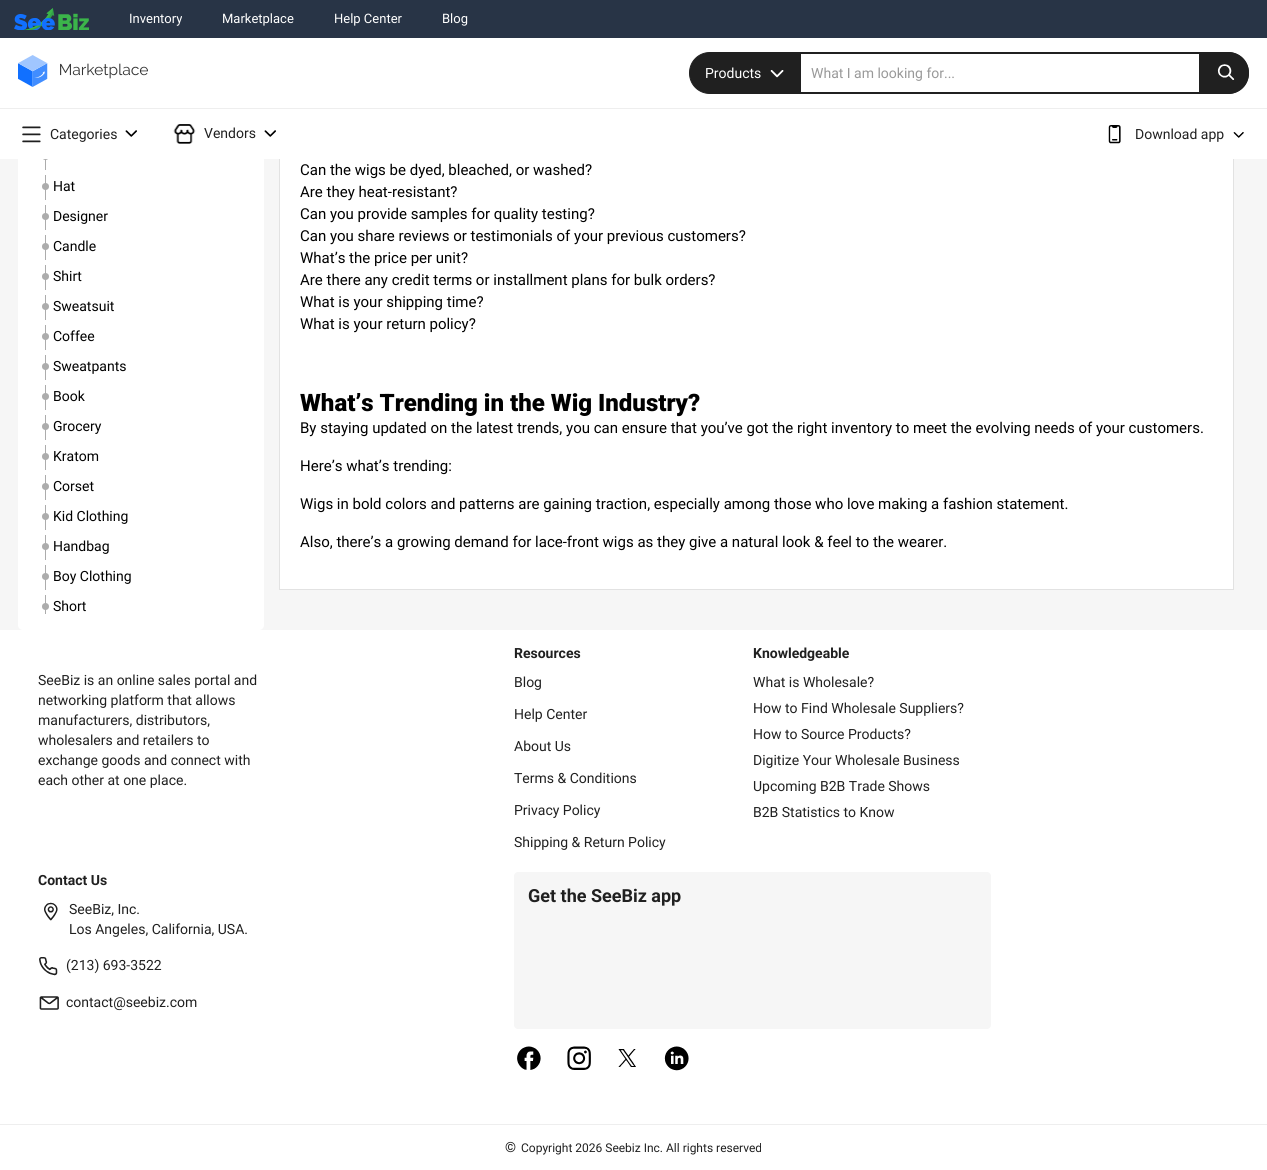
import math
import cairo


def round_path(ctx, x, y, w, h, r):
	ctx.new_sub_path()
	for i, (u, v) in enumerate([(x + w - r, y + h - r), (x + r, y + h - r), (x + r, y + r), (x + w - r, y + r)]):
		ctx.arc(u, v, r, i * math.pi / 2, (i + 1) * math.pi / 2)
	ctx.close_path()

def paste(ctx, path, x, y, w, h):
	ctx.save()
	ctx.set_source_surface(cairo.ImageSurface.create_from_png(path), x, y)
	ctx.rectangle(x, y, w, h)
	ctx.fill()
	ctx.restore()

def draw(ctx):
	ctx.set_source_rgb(1, 1, 1)
	ctx.paint()
	ctx.set_source_rgb(0.961, 0.961, 0.961)
	ctx.rectangle(0, 159, 1267, 471)
	ctx.fill()
	ctx.set_source_rgb(1, 1, 1)
	round_path(ctx, 18, -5, 246, 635, 5)
	ctx.fill()
	ctx.rectangle(280, 159, 953, 430)
	ctx.fill()
	ctx.rectangle(279.5, -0.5, 954, 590)
	ctx.set_source_rgb(0.886, 0.886, 0.886)
	ctx.set_line_width(1)
	ctx.stroke()
	ctx.set_source_rgb(0.157, 0.204, 0.275)
	ctx.rectangle(0, 0, 1267, 38)
	ctx.fill()
	paste(ctx, 'media/1.png', 14, 8, 75, 22)
	ctx.select_font_face('Roboto')
	ctx.set_font_size(13)
	ctx.set_source_rgb(1, 1, 1)
	for x, y, s in [
		(129, 23, 'Inventory'),
		(222, 23, 'Marketplace'),
		(334, 23, 'Help Center'),
		(442, 23, 'Blog'),
	]:
		ctx.move_to(x, y)
		ctx.show_text(s)
	ctx.set_source_rgb(0.675, 0.675, 0.675)
	ctx.rectangle(45, 159, 1, 11)
	ctx.fill()
	ctx.arc(45.5, 156.5, 3.5, 0, 2 * math.pi)
	ctx.fill()
	ctx.set_source_rgb(1, 1, 1)
	ctx.rectangle(42, 38, 1192, 121)
	ctx.fill()
	ctx.set_source_rgb(0.933, 0.933, 0.933)
	ctx.rectangle(0, 108, 1267, 1)
	ctx.fill()
	paste(ctx, 'media/2.png', 18, 55, 130, 32)
	ctx.set_source_rgb(0.125, 0.125, 0.125)
	ctx.new_path()
	ctx.move_to(710, 52.5)
	ctx.line_to(800.5, 52.5)
	ctx.line_to(800.5, 93.5)
	ctx.line_to(710, 93.5)
	ctx.curve_to(698.5, 93.5, 689.5, 84.5, 689.5, 73)
	ctx.curve_to(689.5, 61.5, 698.5, 52.5, 710, 52.5)
	ctx.close_path()
	ctx.fill_preserve()
	ctx.stroke()
	ctx.set_font_size(14)
	ctx.set_source_rgb(1, 1, 1)
	ctx.move_to(705, 78)
	ctx.show_text('Products')
	paste(ctx, 'media/3.png', 770, 70, 14, 8)
	ctx.set_source_rgb(0.125, 0.125, 0.125)
	ctx.set_fill_rule(cairo.FILL_RULE_EVEN_ODD)
	ctx.new_path()
	ctx.move_to(801, 52)
	ctx.line_to(1228, 52)
	ctx.curve_to(1240, 52, 1249, 61, 1249, 73)
	ctx.curve_to(1249, 85, 1240, 94, 1228, 94)
	ctx.line_to(801, 94)
	ctx.close_path()
	ctx.move_to(801, 54)
	ctx.line_to(1228, 54)
	ctx.curve_to(1238, 54, 1247, 63, 1247, 73)
	ctx.curve_to(1247, 83, 1238, 92, 1228, 92)
	ctx.line_to(801, 92)
	ctx.close_path()
	ctx.fill()
	ctx.set_source_rgb(0.6, 0.6, 0.6)
	ctx.move_to(811, 78)
	ctx.show_text('What I am looking for...')
	ctx.set_source_rgb(0.125, 0.125, 0.125)
	ctx.new_path()
	ctx.move_to(1199, 52)
	ctx.line_to(1228, 52)
	ctx.curve_to(1239.5, 52, 1249, 61.5, 1249, 73)
	ctx.curve_to(1249, 84.5, 1239.5, 94, 1228, 94)
	ctx.line_to(1199, 94)
	ctx.close_path()
	ctx.fill()
	paste(ctx, 'media/4.png', 1217, 64, 18, 16)
	paste(ctx, 'media/5.png', 22, 126, 19, 17)
	ctx.move_to(50, 139)
	ctx.show_text('Categories')
	paste(ctx, 'media/6.png', 125, 130, 12, 7)
	paste(ctx, 'media/7.png', 173, 124, 23, 20)
	ctx.move_to(204, 138)
	ctx.show_text('Vendors')
	paste(ctx, 'media/6.png', 264, 130, 12, 7)
	paste(ctx, 'media/8.png', 1108, 125, 13, 19)
	ctx.move_to(1135, 139)
	ctx.show_text('Download app')
	paste(ctx, 'media/9.png', 1233, 132, 11, 6)
	ctx.set_source_rgb(0.675, 0.675, 0.675)
	ctx.rectangle(45, 175, 1, 25)
	ctx.fill()
	ctx.set_source_rgb(0, 0, 0)
	ctx.move_to(53, 191)
	ctx.show_text('Hat')
	ctx.set_source_rgb(0.675, 0.675, 0.675)
	ctx.new_path()
	ctx.arc(45.5, 186.5, 3.5, 0, 2 * math.pi)
	ctx.fill()
	ctx.rectangle(45, 205, 1, 25)
	ctx.fill()
	ctx.set_source_rgb(0, 0, 0)
	ctx.move_to(53, 221)
	ctx.show_text('Designer')
	ctx.set_source_rgb(0.675, 0.675, 0.675)
	ctx.new_path()
	ctx.arc(45.5, 216.5, 3.5, 0, 2 * math.pi)
	ctx.fill()
	ctx.rectangle(45, 235, 1, 25)
	ctx.fill()
	ctx.set_source_rgb(0, 0, 0)
	ctx.move_to(53, 251)
	ctx.show_text('Candle')
	ctx.set_source_rgb(0.675, 0.675, 0.675)
	ctx.new_path()
	ctx.arc(45.5, 246.5, 3.5, 0, 2 * math.pi)
	ctx.fill()
	ctx.rectangle(45, 265, 1, 25)
	ctx.fill()
	ctx.set_source_rgb(0, 0, 0)
	ctx.move_to(53, 281)
	ctx.show_text('Shirt')
	ctx.set_source_rgb(0.675, 0.675, 0.675)
	ctx.new_path()
	ctx.arc(45.5, 276.5, 3.5, 0, 2 * math.pi)
	ctx.fill()
	ctx.rectangle(45, 295, 1, 25)
	ctx.fill()
	ctx.set_source_rgb(0, 0, 0)
	ctx.move_to(53, 311)
	ctx.show_text('Sweatsuit')
	ctx.set_source_rgb(0.675, 0.675, 0.675)
	ctx.new_path()
	ctx.arc(45.5, 306.5, 3.5, 0, 2 * math.pi)
	ctx.fill()
	ctx.rectangle(45, 325, 1, 25)
	ctx.fill()
	ctx.set_source_rgb(0, 0, 0)
	ctx.move_to(53, 341)
	ctx.show_text('Coffee')
	ctx.set_source_rgb(0.675, 0.675, 0.675)
	ctx.new_path()
	ctx.arc(45.5, 336.5, 3.5, 0, 2 * math.pi)
	ctx.fill()
	ctx.rectangle(45, 355, 1, 25)
	ctx.fill()
	ctx.set_source_rgb(0, 0, 0)
	ctx.move_to(53, 371)
	ctx.show_text('Sweatpants')
	ctx.set_source_rgb(0.675, 0.675, 0.675)
	ctx.new_path()
	ctx.arc(45.5, 366.5, 3.5, 0, 2 * math.pi)
	ctx.fill()
	ctx.rectangle(45, 385, 1, 25)
	ctx.fill()
	ctx.set_source_rgb(0, 0, 0)
	ctx.move_to(53, 401)
	ctx.show_text('Book')
	ctx.set_source_rgb(0.675, 0.675, 0.675)
	ctx.new_path()
	ctx.arc(45.5, 396.5, 3.5, 0, 2 * math.pi)
	ctx.fill()
	ctx.rectangle(45, 415, 1, 25)
	ctx.fill()
	ctx.set_source_rgb(0, 0, 0)
	ctx.move_to(53, 431)
	ctx.show_text('Grocery')
	ctx.set_source_rgb(0.675, 0.675, 0.675)
	ctx.new_path()
	ctx.arc(45.5, 426.5, 3.5, 0, 2 * math.pi)
	ctx.fill()
	ctx.rectangle(45, 445, 1, 25)
	ctx.fill()
	ctx.set_source_rgb(0, 0, 0)
	ctx.move_to(53, 461)
	ctx.show_text('Kratom')
	ctx.set_source_rgb(0.675, 0.675, 0.675)
	ctx.new_path()
	ctx.arc(45.5, 456.5, 3.5, 0, 2 * math.pi)
	ctx.fill()
	ctx.rectangle(45, 475, 1, 25)
	ctx.fill()
	ctx.set_source_rgb(0, 0, 0)
	ctx.move_to(53, 491)
	ctx.show_text('Corset')
	ctx.set_source_rgb(0.675, 0.675, 0.675)
	ctx.new_path()
	ctx.arc(45.5, 486.5, 3.5, 0, 2 * math.pi)
	ctx.fill()
	ctx.rectangle(45, 505, 1, 25)
	ctx.fill()
	ctx.set_source_rgb(0, 0, 0)
	ctx.move_to(53, 521)
	ctx.show_text('Kid Clothing')
	ctx.set_source_rgb(0.675, 0.675, 0.675)
	ctx.new_path()
	ctx.arc(45.5, 516.5, 3.5, 0, 2 * math.pi)
	ctx.fill()
	ctx.rectangle(45, 535, 1, 25)
	ctx.fill()
	ctx.set_source_rgb(0, 0, 0)
	ctx.move_to(53, 551)
	ctx.show_text('Handbag')
	ctx.set_source_rgb(0.675, 0.675, 0.675)
	ctx.new_path()
	ctx.arc(45.5, 546.5, 3.5, 0, 2 * math.pi)
	ctx.fill()
	ctx.rectangle(45, 565, 1, 25)
	ctx.fill()
	ctx.set_source_rgb(0, 0, 0)
	ctx.move_to(53, 581)
	ctx.show_text('Boy Clothing')
	ctx.set_source_rgb(0.675, 0.675, 0.675)
	ctx.new_path()
	ctx.arc(45.5, 576.5, 3.5, 0, 2 * math.pi)
	ctx.fill()
	ctx.rectangle(45, 595, 1, 19)
	ctx.fill()
	ctx.set_source_rgb(0, 0, 0)
	ctx.move_to(53, 611)
	ctx.show_text('Short')
	ctx.set_source_rgb(0.675, 0.675, 0.675)
	ctx.new_path()
	ctx.arc(45.5, 606.5, 3.5, 0, 2 * math.pi)
	ctx.fill()
	ctx.set_font_size(15)
	ctx.set_source_rgb(0, 0, 0)
	for x, y, s in [
		(300, 175, 'Can the wigs be dyed, bleached, or washed?'),
		(300, 197, 'Are they heat-resistant?'),
		(300, 219, 'Can you provide samples for quality testing?'),
		(300, 241, 'Can you share reviews or testimonials of your previous customers?'),
		(300, 263, 'What’s the price per unit?'),
		(300, 285, 'Are there any credit terms or installment plans for bulk orders?'),
		(300, 307, 'What is your shipping time?'),
		(300, 329, 'What is your return policy?'),
	]:
		ctx.move_to(x, y)
		ctx.show_text(s)
	ctx.select_font_face('Roboto Black')
	ctx.set_font_size(24)
	ctx.move_to(300, 411)
	ctx.show_text('What’s Trending in the Wig Industry?')
	ctx.select_font_face('Roboto')
	ctx.set_font_size(15)
	for x, y, s in [
		(300, 433, 'By staying updated on the latest trends, you can ensure that you’ve got the right inventory to meet the evolving needs of your customers.'),
		(300, 471, 'Here’s what’s trending:'),
		(300, 509, 'Wigs in bold colors and patterns are gaining traction, especially among those who love making a fashion statement.'),
		(300, 547, 'Also, there’s a growing demand for lace-front wigs as they give a natural look & feel to the wearer.'),
	]:
		ctx.move_to(x, y)
		ctx.show_text(s)
	ctx.set_font_size(14)
	ctx.set_source_rgb(0.125, 0.125, 0.125)
	for x, y, s in [
		(38, 685, 'SeeBiz is an online sales portal and'),
		(38, 705, 'networking platform that allows'),
		(38, 725, 'manufacturers, distributors,'),
		(38, 745, 'wholesalers and retailers to'),
		(38, 765, 'exchange goods and connect with'),
		(38, 785, 'each other at one place.'),
	]:
		ctx.move_to(x, y)
		ctx.show_text(s)
	ctx.select_font_face('Roboto', cairo.FONT_SLANT_NORMAL, cairo.FONT_WEIGHT_BOLD)
	ctx.move_to(514, 658)
	ctx.show_text('Resources')
	ctx.select_font_face('Roboto')
	for x, y, s in [
		(514, 687, 'Blog'),
		(514, 719, 'Help Center'),
		(514, 751, 'About Us'),
		(514, 783, 'Terms & Conditions'),
		(514, 815, 'Privacy Policy'),
		(514, 847, 'Shipping & Return Policy'),
	]:
		ctx.move_to(x, y)
		ctx.show_text(s)
	ctx.select_font_face('Roboto', cairo.FONT_SLANT_NORMAL, cairo.FONT_WEIGHT_BOLD)
	ctx.move_to(753, 658)
	ctx.show_text('Knowledgeable')
	ctx.select_font_face('Roboto')
	for x, y, s in [
		(753, 687, 'What is Wholesale?'),
		(753, 713, 'How to Find Wholesale Suppliers?'),
		(753, 739, 'How to Source Products?'),
		(753, 765, 'Digitize Your Wholesale Business'),
		(753, 791, 'Upcoming B2B Trade Shows'),
		(753, 817, 'B2B Statistics to Know'),
	]:
		ctx.move_to(x, y)
		ctx.show_text(s)
	ctx.select_font_face('Roboto', cairo.FONT_SLANT_NORMAL, cairo.FONT_WEIGHT_BOLD)
	ctx.move_to(38, 885)
	ctx.show_text('Contact Us')
	paste(ctx, 'media/10.png', 44, 902, 14, 19)
	ctx.select_font_face('Roboto')
	ctx.move_to(69, 914)
	ctx.show_text('SeeBiz, Inc.')
	ctx.move_to(69, 934)
	ctx.show_text('Los Angeles, California, USA.')
	paste(ctx, 'media/11.png', 39, 957, 19, 19)
	ctx.move_to(66, 970)
	ctx.show_text('(213) 693-3522')
	paste(ctx, 'media/12.png', 39, 996, 20, 14)
	ctx.move_to(66, 1007)
	ctx.show_text('contact@seebiz.com')
	ctx.set_source_rgb(0.961, 0.961, 0.961)
	round_path(ctx, 514, 872, 477, 157, 4)
	ctx.fill()
	ctx.select_font_face('Roboto', cairo.FONT_SLANT_NORMAL, cairo.FONT_WEIGHT_BOLD)
	ctx.set_font_size(18)
	ctx.set_source_rgb(0.125, 0.125, 0.125)
	ctx.move_to(528, 902)
	ctx.show_text('Get the SeeBiz app')
	paste(ctx, 'media/13.png', 517, 1046, 24, 24)
	paste(ctx, 'media/14.png', 567, 1046, 24, 24)
	paste(ctx, 'media/15.png', 618, 1049, 18, 18)
	paste(ctx, 'media/16.png', 664, 1046, 25, 25)
	ctx.set_source_rgb(0.933, 0.933, 0.933)
	ctx.rectangle(0, 1124, 1267, 1)
	ctx.fill()
	ctx.select_font_face('Roboto')
	ctx.set_font_size(14)
	ctx.set_source_rgb(0.125, 0.125, 0.125)
	ctx.move_to(505, 1152)
	ctx.show_text('©')
	ctx.set_font_size(12)
	ctx.move_to(521, 1152)
	ctx.show_text('Copyright 2026 Seebiz Inc. All rights reserved')


surface = cairo.ImageSurface(cairo.FORMAT_RGB24, 1267, 1170)
ctx = cairo.Context(surface)
options = cairo.FontOptions()
options.set_hint_metrics(cairo.HINT_METRICS_OFF)
options.set_hint_style(cairo.HINT_STYLE_NONE)
ctx.set_font_options(options)
ctx.set_miter_limit(4)
draw(ctx)
surface.write_to_png('image.png')
